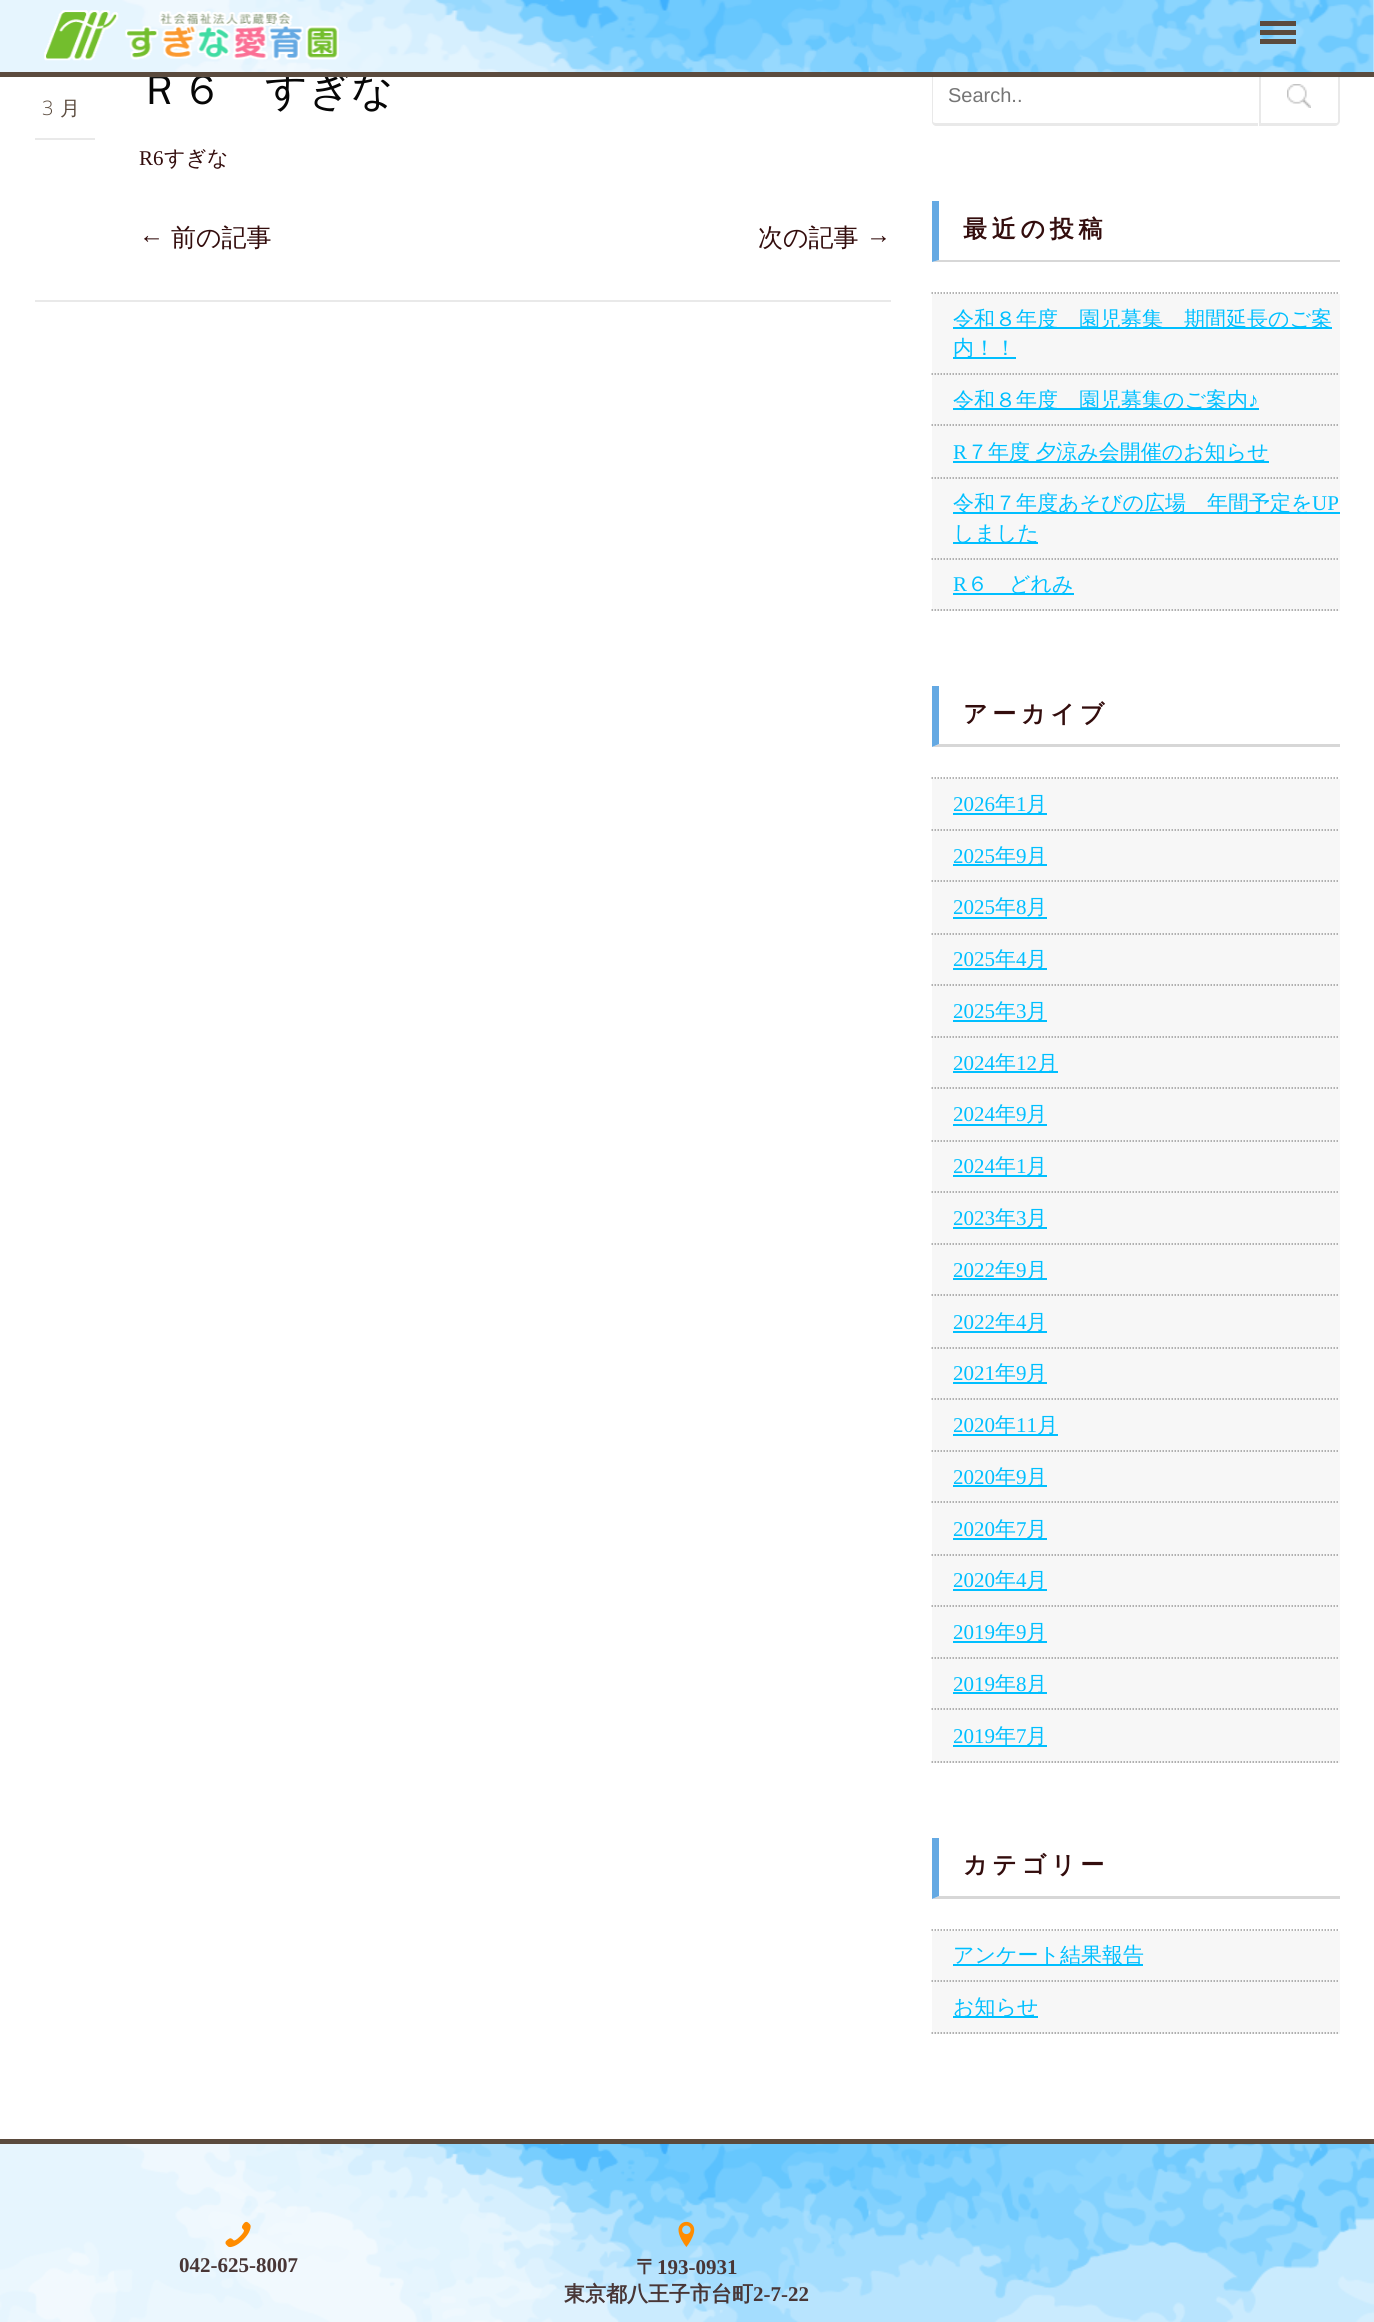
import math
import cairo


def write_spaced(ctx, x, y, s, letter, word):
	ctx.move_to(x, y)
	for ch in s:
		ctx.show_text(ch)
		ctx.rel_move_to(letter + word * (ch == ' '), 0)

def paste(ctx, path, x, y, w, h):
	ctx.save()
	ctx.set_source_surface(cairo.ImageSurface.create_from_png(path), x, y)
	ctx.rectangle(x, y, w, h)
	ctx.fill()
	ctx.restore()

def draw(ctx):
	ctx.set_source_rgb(1, 1, 1)
	ctx.paint()
	ctx.select_font_face('WenQuanYi Zen Hei Medium')
	ctx.set_font_size(42)
	ctx.set_source_rgb(0.024, 0.024, 0.024)
	ctx.move_to(139, 104)
	ctx.show_text('Ｒ６　すぎな')
	ctx.set_source_rgb(0.914, 0.914, 0.914)
	ctx.set_fill_rule(cairo.FILL_RULE_EVEN_ODD)
	ctx.new_path()
	ctx.move_to(936, 66)
	ctx.line_to(1258, 66)
	ctx.line_to(1258, 126)
	ctx.line_to(936, 126)
	ctx.curve_to(934, 126, 932, 124, 932, 122)
	ctx.line_to(932, 70)
	ctx.curve_to(932, 68, 934, 66, 936, 66)
	ctx.close_path()
	ctx.move_to(936, 68)
	ctx.line_to(1258, 68)
	ctx.line_to(1258, 123)
	ctx.line_to(936, 123)
	ctx.curve_to(934, 123, 933, 122, 933, 122)
	ctx.line_to(933, 70)
	ctx.curve_to(933, 69, 934, 68, 936, 68)
	ctx.close_path()
	ctx.fill()
	paste(ctx, 'media/3.png', 1287, 84, 24, 24)
	ctx.new_path()
	ctx.move_to(1260, 67)
	ctx.line_to(1335, 67)
	ctx.curve_to(1337, 67, 1339, 69, 1339, 71)
	ctx.line_to(1339, 121)
	ctx.curve_to(1339, 123, 1337, 125, 1335, 125)
	ctx.line_to(1260, 125)
	ctx.close_path()
	ctx.stroke()
	paste(ctx, 'media/1.png', 0, 0, 1374, 78)
	ctx.set_source_rgb(0.357, 0.294, 0.243)
	ctx.rectangle(0, 72, 1374, 5)
	ctx.fill()
	paste(ctx, 'media/2.png', 44, 10, 295, 51)
	ctx.rectangle(1260, 21, 36, 5)
	ctx.rectangle(1260, 30, 36, 5)
	ctx.rectangle(1260, 39, 36, 5)
	ctx.fill()
	ctx.set_source_rgb(0.914, 0.914, 0.914)
	ctx.rectangle(35, 300, 856, 2)
	ctx.rectangle(35, 138, 60, 2)
	ctx.fill()
	ctx.select_font_face('Open Sans Light')
	ctx.set_font_size(20)
	ctx.set_source_rgb(0.357, 0.294, 0.243)
	write_spaced(ctx, 42, 115, '3', 7, 0)
	ctx.select_font_face('WenQuanYi Zen Hei Medium')
	write_spaced(ctx, 60, 115, '月', 7, 0)
	ctx.select_font_face('Liberation Serif')
	ctx.set_font_size(21)
	ctx.set_source_rgb(0.2, 0.051, 0.051)
	ctx.move_to(139, 165)
	ctx.show_text('R6')
	ctx.select_font_face('WenQuanYi Zen Hei Medium')
	ctx.move_to(164, 165)
	ctx.show_text('すぎな')
	ctx.select_font_face('Liberation Serif')
	ctx.set_font_size(25)
	ctx.move_to(139, 243)
	ctx.show_text('←')
	ctx.select_font_face('WenQuanYi Zen Hei Medium')
	ctx.move_to(171, 246)
	ctx.show_text('前の記事')
	ctx.move_to(758, 246)
	ctx.show_text('次の記事')
	ctx.select_font_face('Liberation Serif')
	ctx.move_to(866, 243)
	ctx.show_text('→')
	ctx.select_font_face('Liberation Sans')
	ctx.set_font_size(20)
	ctx.set_source_rgb(0.459, 0.459, 0.459)
	ctx.move_to(948, 102)
	ctx.show_text('Search..')
	ctx.set_source_rgb(0.914, 0.914, 0.914)
	ctx.rectangle(1259, 123, 79, 1)
	ctx.fill()
	ctx.set_source_rgb(0.843, 0.843, 0.843)
	ctx.set_fill_rule(cairo.FILL_RULE_WINDING)
	ctx.new_path()
	ctx.move_to(1340, 262)
	ctx.line_to(932, 262)
	ctx.line_to(939, 260)
	ctx.line_to(1340, 260)
	ctx.close_path()
	ctx.fill()
	ctx.set_source_rgb(0.392, 0.663, 0.89)
	ctx.new_path()
	ctx.move_to(932, 262)
	ctx.line_to(932, 201)
	ctx.line_to(939, 201)
	ctx.line_to(939, 260)
	ctx.close_path()
	ctx.fill()
	ctx.select_font_face('WenQuanYi Zen Hei', cairo.FONT_SLANT_NORMAL, cairo.FONT_WEIGHT_BOLD)
	ctx.set_font_size(24)
	ctx.set_source_rgb(0.2, 0.051, 0.051)
	write_spaced(ctx, 963, 237, '最近の投稿', 4.75, 0)
	ctx.new_path()
	ctx.move_to(931.5, 293)
	ctx.line_to(1339.5, 293)
	ctx.set_source_rgb(0.6, 0.6, 0.6)
	ctx.set_line_width(1.5)
	ctx.set_dash([1.5, 1.5])
	ctx.stroke()
	ctx.set_source_rgb(0.965, 0.965, 0.965)
	ctx.rectangle(932, 294, 408, 317)
	ctx.fill()
	ctx.new_path()
	ctx.move_to(931.5, 374)
	ctx.line_to(1339.5, 374)
	ctx.set_source_rgb(0.6, 0.6, 0.6)
	ctx.stroke()
	ctx.set_source_rgb(0, 0.749, 1)
	ctx.rectangle(953, 327, 379, 2)
	ctx.fill()
	ctx.select_font_face('WenQuanYi Zen Hei Medium')
	ctx.set_font_size(21)
	ctx.move_to(953, 326)
	ctx.show_text('令和８年度　園児募集　期間延長のご案')
	ctx.rectangle(953, 357, 63, 2)
	ctx.fill()
	ctx.move_to(953, 355)
	ctx.show_text('内！！')
	ctx.new_path()
	ctx.move_to(931.5, 425)
	ctx.line_to(1339.5, 425)
	ctx.set_source_rgb(0.6, 0.6, 0.6)
	ctx.stroke()
	ctx.set_source_rgb(0, 0.749, 1)
	ctx.rectangle(953, 408, 306, 2)
	ctx.fill()
	ctx.move_to(953, 407)
	ctx.show_text('令和８年度　園児募集のご案内')
	ctx.select_font_face('Liberation Serif')
	ctx.move_to(1248, 407)
	ctx.show_text('♪')
	ctx.new_path()
	ctx.move_to(931.5, 478)
	ctx.line_to(1339.5, 478)
	ctx.set_source_rgb(0.6, 0.6, 0.6)
	ctx.stroke()
	ctx.set_source_rgb(0, 0.749, 1)
	ctx.move_to(953, 459)
	ctx.show_text('R')
	ctx.rectangle(953, 461, 316, 2)
	ctx.fill()
	ctx.select_font_face('WenQuanYi Zen Hei Medium')
	write_spaced(ctx, 967, 459, '７年度 夕涼み会開催のお知らせ', 0, -1)
	ctx.new_path()
	ctx.move_to(931.5, 559)
	ctx.line_to(1339.5, 559)
	ctx.set_source_rgb(0.6, 0.6, 0.6)
	ctx.stroke()
	ctx.set_source_rgb(0, 0.749, 1)
	ctx.rectangle(953, 512, 387, 2)
	ctx.fill()
	ctx.move_to(953, 510)
	ctx.show_text('令和７年度あそびの広場　年間予定を')
	ctx.select_font_face('Liberation Serif')
	ctx.move_to(1312, 510)
	ctx.show_text('UP')
	ctx.rectangle(953, 542, 85, 2)
	ctx.fill()
	ctx.select_font_face('WenQuanYi Zen Hei Medium')
	ctx.move_to(953, 540)
	ctx.show_text('しました')
	ctx.new_path()
	ctx.move_to(931.5, 610)
	ctx.line_to(1339.5, 610)
	ctx.set_source_rgb(0.6, 0.6, 0.6)
	ctx.stroke()
	ctx.select_font_face('Liberation Serif')
	ctx.set_source_rgb(0, 0.749, 1)
	ctx.move_to(953, 591)
	ctx.show_text('R')
	ctx.rectangle(953, 593, 121, 2)
	ctx.fill()
	ctx.select_font_face('WenQuanYi Zen Hei Medium')
	ctx.move_to(967, 591)
	ctx.show_text('６　どれみ')
	ctx.set_source_rgb(0.843, 0.843, 0.843)
	ctx.new_path()
	ctx.move_to(1340, 747)
	ctx.line_to(932, 747)
	ctx.line_to(939, 744)
	ctx.line_to(1340, 744)
	ctx.close_path()
	ctx.fill()
	ctx.set_source_rgb(0.392, 0.663, 0.89)
	ctx.new_path()
	ctx.move_to(932, 747)
	ctx.line_to(932, 686)
	ctx.line_to(939, 686)
	ctx.line_to(939, 744)
	ctx.close_path()
	ctx.fill()
	ctx.select_font_face('WenQuanYi Zen Hei', cairo.FONT_SLANT_NORMAL, cairo.FONT_WEIGHT_BOLD)
	ctx.set_font_size(24)
	ctx.set_source_rgb(0.2, 0.051, 0.051)
	write_spaced(ctx, 963, 722, 'アーカイブ', 4.75, 0)
	ctx.new_path()
	ctx.move_to(931.5, 778)
	ctx.line_to(1339.5, 778)
	ctx.set_source_rgb(0.6, 0.6, 0.6)
	ctx.stroke()
	ctx.set_source_rgb(0.965, 0.965, 0.965)
	ctx.rectangle(932, 779, 408, 984)
	ctx.fill()
	ctx.new_path()
	ctx.move_to(931.5, 830)
	ctx.line_to(1339.5, 830)
	ctx.set_source_rgb(0.6, 0.6, 0.6)
	ctx.stroke()
	ctx.select_font_face('Liberation Serif')
	ctx.set_font_size(21)
	ctx.set_source_rgb(0, 0.749, 1)
	ctx.move_to(953, 811)
	ctx.show_text('2026')
	ctx.rectangle(953, 813, 94, 2)
	ctx.fill()
	ctx.select_font_face('WenQuanYi Zen Hei Medium')
	ctx.move_to(995, 811)
	ctx.show_text('年')
	ctx.select_font_face('Liberation Serif')
	ctx.move_to(1016, 811)
	ctx.show_text('1')
	ctx.select_font_face('WenQuanYi Zen Hei Medium')
	ctx.move_to(1026, 811)
	ctx.show_text('月')
	ctx.new_path()
	ctx.move_to(931.5, 881)
	ctx.line_to(1339.5, 881)
	ctx.set_source_rgb(0.6, 0.6, 0.6)
	ctx.stroke()
	ctx.select_font_face('Liberation Serif')
	ctx.set_source_rgb(0, 0.749, 1)
	ctx.move_to(953, 863)
	ctx.show_text('2025')
	ctx.rectangle(953, 864, 94, 2)
	ctx.fill()
	ctx.select_font_face('WenQuanYi Zen Hei Medium')
	ctx.move_to(995, 863)
	ctx.show_text('年')
	ctx.select_font_face('Liberation Serif')
	ctx.move_to(1016, 863)
	ctx.show_text('9')
	ctx.select_font_face('WenQuanYi Zen Hei Medium')
	ctx.move_to(1026, 863)
	ctx.show_text('月')
	ctx.new_path()
	ctx.move_to(931.5, 934)
	ctx.line_to(1339.5, 934)
	ctx.set_source_rgb(0.6, 0.6, 0.6)
	ctx.stroke()
	ctx.select_font_face('Liberation Serif')
	ctx.set_source_rgb(0, 0.749, 1)
	ctx.move_to(953, 914)
	ctx.show_text('2025')
	ctx.rectangle(953, 917, 94, 2)
	ctx.fill()
	ctx.select_font_face('WenQuanYi Zen Hei Medium')
	ctx.move_to(995, 914)
	ctx.show_text('年')
	ctx.select_font_face('Liberation Serif')
	ctx.move_to(1016, 914)
	ctx.show_text('8')
	ctx.select_font_face('WenQuanYi Zen Hei Medium')
	ctx.move_to(1026, 914)
	ctx.show_text('月')
	ctx.new_path()
	ctx.move_to(931.5, 985)
	ctx.line_to(1339.5, 985)
	ctx.set_source_rgb(0.6, 0.6, 0.6)
	ctx.stroke()
	ctx.select_font_face('Liberation Serif')
	ctx.set_source_rgb(0, 0.749, 1)
	ctx.move_to(953, 966)
	ctx.show_text('2025')
	ctx.rectangle(953, 968, 94, 2)
	ctx.fill()
	ctx.select_font_face('WenQuanYi Zen Hei Medium')
	ctx.move_to(995, 966)
	ctx.show_text('年')
	ctx.select_font_face('Liberation Serif')
	ctx.move_to(1016, 966)
	ctx.show_text('4')
	ctx.select_font_face('WenQuanYi Zen Hei Medium')
	ctx.move_to(1026, 966)
	ctx.show_text('月')
	ctx.new_path()
	ctx.move_to(931.5, 1037)
	ctx.line_to(1339.5, 1037)
	ctx.set_source_rgb(0.6, 0.6, 0.6)
	ctx.stroke()
	ctx.select_font_face('Liberation Serif')
	ctx.set_source_rgb(0, 0.749, 1)
	ctx.move_to(953, 1018)
	ctx.show_text('2025')
	ctx.rectangle(953, 1020, 94, 2)
	ctx.fill()
	ctx.select_font_face('WenQuanYi Zen Hei Medium')
	ctx.move_to(995, 1018)
	ctx.show_text('年')
	ctx.select_font_face('Liberation Serif')
	ctx.move_to(1016, 1018)
	ctx.show_text('3')
	ctx.select_font_face('WenQuanYi Zen Hei Medium')
	ctx.move_to(1026, 1018)
	ctx.show_text('月')
	ctx.new_path()
	ctx.move_to(931.5, 1088)
	ctx.line_to(1339.5, 1088)
	ctx.set_source_rgb(0.6, 0.6, 0.6)
	ctx.stroke()
	ctx.select_font_face('Liberation Serif')
	ctx.set_source_rgb(0, 0.749, 1)
	ctx.move_to(953, 1070)
	ctx.show_text('2024')
	ctx.rectangle(953, 1071, 105, 2)
	ctx.fill()
	ctx.select_font_face('WenQuanYi Zen Hei Medium')
	ctx.move_to(995, 1070)
	ctx.show_text('年')
	ctx.select_font_face('Liberation Serif')
	ctx.move_to(1016, 1070)
	ctx.show_text('12')
	ctx.select_font_face('WenQuanYi Zen Hei Medium')
	ctx.move_to(1037, 1070)
	ctx.show_text('月')
	ctx.new_path()
	ctx.move_to(931.5, 1141)
	ctx.line_to(1339.5, 1141)
	ctx.set_source_rgb(0.6, 0.6, 0.6)
	ctx.stroke()
	ctx.select_font_face('Liberation Serif')
	ctx.set_source_rgb(0, 0.749, 1)
	ctx.move_to(953, 1121)
	ctx.show_text('2024')
	ctx.rectangle(953, 1124, 94, 2)
	ctx.fill()
	ctx.select_font_face('WenQuanYi Zen Hei Medium')
	ctx.move_to(995, 1121)
	ctx.show_text('年')
	ctx.select_font_face('Liberation Serif')
	ctx.move_to(1016, 1121)
	ctx.show_text('9')
	ctx.select_font_face('WenQuanYi Zen Hei Medium')
	ctx.move_to(1026, 1121)
	ctx.show_text('月')
	ctx.new_path()
	ctx.move_to(931.5, 1192)
	ctx.line_to(1339.5, 1192)
	ctx.set_source_rgb(0.6, 0.6, 0.6)
	ctx.stroke()
	ctx.select_font_face('Liberation Serif')
	ctx.set_source_rgb(0, 0.749, 1)
	ctx.move_to(953, 1173)
	ctx.show_text('2024')
	ctx.rectangle(953, 1175, 94, 2)
	ctx.fill()
	ctx.select_font_face('WenQuanYi Zen Hei Medium')
	ctx.move_to(995, 1173)
	ctx.show_text('年')
	ctx.select_font_face('Liberation Serif')
	ctx.move_to(1016, 1173)
	ctx.show_text('1')
	ctx.select_font_face('WenQuanYi Zen Hei Medium')
	ctx.move_to(1026, 1173)
	ctx.show_text('月')
	ctx.new_path()
	ctx.move_to(931.5, 1244)
	ctx.line_to(1339.5, 1244)
	ctx.set_source_rgb(0.6, 0.6, 0.6)
	ctx.stroke()
	ctx.select_font_face('Liberation Serif')
	ctx.set_source_rgb(0, 0.749, 1)
	ctx.move_to(953, 1225)
	ctx.show_text('2023')
	ctx.rectangle(953, 1227, 94, 2)
	ctx.fill()
	ctx.select_font_face('WenQuanYi Zen Hei Medium')
	ctx.move_to(995, 1225)
	ctx.show_text('年')
	ctx.select_font_face('Liberation Serif')
	ctx.move_to(1016, 1225)
	ctx.show_text('3')
	ctx.select_font_face('WenQuanYi Zen Hei Medium')
	ctx.move_to(1026, 1225)
	ctx.show_text('月')
	ctx.new_path()
	ctx.move_to(931.5, 1295)
	ctx.line_to(1339.5, 1295)
	ctx.set_source_rgb(0.6, 0.6, 0.6)
	ctx.stroke()
	ctx.select_font_face('Liberation Serif')
	ctx.set_source_rgb(0, 0.749, 1)
	ctx.move_to(953, 1277)
	ctx.show_text('2022')
	ctx.rectangle(953, 1278, 94, 2)
	ctx.fill()
	ctx.select_font_face('WenQuanYi Zen Hei Medium')
	ctx.move_to(995, 1277)
	ctx.show_text('年')
	ctx.select_font_face('Liberation Serif')
	ctx.move_to(1016, 1277)
	ctx.show_text('9')
	ctx.select_font_face('WenQuanYi Zen Hei Medium')
	ctx.move_to(1026, 1277)
	ctx.show_text('月')
	ctx.new_path()
	ctx.move_to(931.5, 1348)
	ctx.line_to(1339.5, 1348)
	ctx.set_source_rgb(0.6, 0.6, 0.6)
	ctx.stroke()
	ctx.select_font_face('Liberation Serif')
	ctx.set_source_rgb(0, 0.749, 1)
	ctx.move_to(953, 1329)
	ctx.show_text('2022')
	ctx.rectangle(953, 1331, 94, 2)
	ctx.fill()
	ctx.select_font_face('WenQuanYi Zen Hei Medium')
	ctx.move_to(995, 1329)
	ctx.show_text('年')
	ctx.select_font_face('Liberation Serif')
	ctx.move_to(1016, 1329)
	ctx.show_text('4')
	ctx.select_font_face('WenQuanYi Zen Hei Medium')
	ctx.move_to(1026, 1329)
	ctx.show_text('月')
	ctx.new_path()
	ctx.move_to(931.5, 1399)
	ctx.line_to(1339.5, 1399)
	ctx.set_source_rgb(0.6, 0.6, 0.6)
	ctx.stroke()
	ctx.select_font_face('Liberation Serif')
	ctx.set_source_rgb(0, 0.749, 1)
	ctx.move_to(953, 1380)
	ctx.show_text('2021')
	ctx.rectangle(953, 1382, 94, 2)
	ctx.fill()
	ctx.select_font_face('WenQuanYi Zen Hei Medium')
	ctx.move_to(995, 1380)
	ctx.show_text('年')
	ctx.select_font_face('Liberation Serif')
	ctx.move_to(1016, 1380)
	ctx.show_text('9')
	ctx.select_font_face('WenQuanYi Zen Hei Medium')
	ctx.move_to(1026, 1380)
	ctx.show_text('月')
	ctx.new_path()
	ctx.move_to(931.5, 1451)
	ctx.line_to(1339.5, 1451)
	ctx.set_source_rgb(0.6, 0.6, 0.6)
	ctx.stroke()
	ctx.select_font_face('Liberation Serif')
	ctx.set_source_rgb(0, 0.749, 1)
	ctx.move_to(953, 1432)
	ctx.show_text('2020')
	ctx.rectangle(953, 1434, 105, 2)
	ctx.fill()
	ctx.select_font_face('WenQuanYi Zen Hei Medium')
	ctx.move_to(995, 1432)
	ctx.show_text('年')
	ctx.select_font_face('Liberation Serif')
	ctx.move_to(1016, 1432)
	ctx.show_text('11')
	ctx.select_font_face('WenQuanYi Zen Hei Medium')
	ctx.move_to(1037, 1432)
	ctx.show_text('月')
	ctx.new_path()
	ctx.move_to(931.5, 1502)
	ctx.line_to(1339.5, 1502)
	ctx.set_source_rgb(0.6, 0.6, 0.6)
	ctx.stroke()
	ctx.select_font_face('Liberation Serif')
	ctx.set_source_rgb(0, 0.749, 1)
	ctx.move_to(953, 1484)
	ctx.show_text('2020')
	ctx.rectangle(953, 1485, 94, 2)
	ctx.fill()
	ctx.select_font_face('WenQuanYi Zen Hei Medium')
	ctx.move_to(995, 1484)
	ctx.show_text('年')
	ctx.select_font_face('Liberation Serif')
	ctx.move_to(1016, 1484)
	ctx.show_text('9')
	ctx.select_font_face('WenQuanYi Zen Hei Medium')
	ctx.move_to(1026, 1484)
	ctx.show_text('月')
	ctx.new_path()
	ctx.move_to(931.5, 1555)
	ctx.line_to(1339.5, 1555)
	ctx.set_source_rgb(0.6, 0.6, 0.6)
	ctx.stroke()
	ctx.select_font_face('Liberation Serif')
	ctx.set_source_rgb(0, 0.749, 1)
	ctx.move_to(953, 1536)
	ctx.show_text('2020')
	ctx.rectangle(953, 1538, 94, 2)
	ctx.fill()
	ctx.select_font_face('WenQuanYi Zen Hei Medium')
	ctx.move_to(995, 1536)
	ctx.show_text('年')
	ctx.select_font_face('Liberation Serif')
	ctx.move_to(1016, 1536)
	ctx.show_text('7')
	ctx.select_font_face('WenQuanYi Zen Hei Medium')
	ctx.move_to(1026, 1536)
	ctx.show_text('月')
	ctx.new_path()
	ctx.move_to(931.5, 1606)
	ctx.line_to(1339.5, 1606)
	ctx.set_source_rgb(0.6, 0.6, 0.6)
	ctx.stroke()
	ctx.select_font_face('Liberation Serif')
	ctx.set_source_rgb(0, 0.749, 1)
	ctx.move_to(953, 1587)
	ctx.show_text('2020')
	ctx.rectangle(953, 1589, 94, 2)
	ctx.fill()
	ctx.select_font_face('WenQuanYi Zen Hei Medium')
	ctx.move_to(995, 1587)
	ctx.show_text('年')
	ctx.select_font_face('Liberation Serif')
	ctx.move_to(1016, 1587)
	ctx.show_text('4')
	ctx.select_font_face('WenQuanYi Zen Hei Medium')
	ctx.move_to(1026, 1587)
	ctx.show_text('月')
	ctx.new_path()
	ctx.move_to(931.5, 1658)
	ctx.line_to(1339.5, 1658)
	ctx.set_source_rgb(0.6, 0.6, 0.6)
	ctx.stroke()
	ctx.select_font_face('Liberation Serif')
	ctx.set_source_rgb(0, 0.749, 1)
	ctx.move_to(953, 1639)
	ctx.show_text('2019')
	ctx.rectangle(953, 1641, 94, 2)
	ctx.fill()
	ctx.select_font_face('WenQuanYi Zen Hei Medium')
	ctx.move_to(995, 1639)
	ctx.show_text('年')
	ctx.select_font_face('Liberation Serif')
	ctx.move_to(1016, 1639)
	ctx.show_text('9')
	ctx.select_font_face('WenQuanYi Zen Hei Medium')
	ctx.move_to(1026, 1639)
	ctx.show_text('月')
	ctx.new_path()
	ctx.move_to(931.5, 1709)
	ctx.line_to(1339.5, 1709)
	ctx.set_source_rgb(0.6, 0.6, 0.6)
	ctx.stroke()
	ctx.select_font_face('Liberation Serif')
	ctx.set_source_rgb(0, 0.749, 1)
	ctx.move_to(953, 1691)
	ctx.show_text('2019')
	ctx.rectangle(953, 1692, 94, 2)
	ctx.fill()
	ctx.select_font_face('WenQuanYi Zen Hei Medium')
	ctx.move_to(995, 1691)
	ctx.show_text('年')
	ctx.select_font_face('Liberation Serif')
	ctx.move_to(1016, 1691)
	ctx.show_text('8')
	ctx.select_font_face('WenQuanYi Zen Hei Medium')
	ctx.move_to(1026, 1691)
	ctx.show_text('月')
	ctx.new_path()
	ctx.move_to(931.5, 1762)
	ctx.line_to(1339.5, 1762)
	ctx.set_source_rgb(0.6, 0.6, 0.6)
	ctx.stroke()
	ctx.select_font_face('Liberation Serif')
	ctx.set_source_rgb(0, 0.749, 1)
	ctx.move_to(953, 1743)
	ctx.show_text('2019')
	ctx.rectangle(953, 1745, 94, 2)
	ctx.fill()
	ctx.select_font_face('WenQuanYi Zen Hei Medium')
	ctx.move_to(995, 1743)
	ctx.show_text('年')
	ctx.select_font_face('Liberation Serif')
	ctx.move_to(1016, 1743)
	ctx.show_text('7')
	ctx.select_font_face('WenQuanYi Zen Hei Medium')
	ctx.move_to(1026, 1743)
	ctx.show_text('月')
	ctx.set_source_rgb(0.843, 0.843, 0.843)
	ctx.new_path()
	ctx.move_to(1340, 1899)
	ctx.line_to(932, 1899)
	ctx.line_to(939, 1896)
	ctx.line_to(1340, 1896)
	ctx.close_path()
	ctx.fill()
	ctx.set_source_rgb(0.392, 0.663, 0.89)
	ctx.new_path()
	ctx.move_to(932, 1899)
	ctx.line_to(932, 1838)
	ctx.line_to(939, 1838)
	ctx.line_to(939, 1896)
	ctx.close_path()
	ctx.fill()
	ctx.select_font_face('WenQuanYi Zen Hei', cairo.FONT_SLANT_NORMAL, cairo.FONT_WEIGHT_BOLD)
	ctx.set_font_size(24)
	ctx.set_source_rgb(0.2, 0.051, 0.051)
	write_spaced(ctx, 963, 1873, 'カテゴリー', 4.75, 0)
	ctx.new_path()
	ctx.move_to(931.5, 1930)
	ctx.line_to(1339.5, 1930)
	ctx.set_source_rgb(0.6, 0.6, 0.6)
	ctx.stroke()
	ctx.set_source_rgb(0.965, 0.965, 0.965)
	ctx.rectangle(932, 1931, 408, 103)
	ctx.fill()
	ctx.new_path()
	ctx.move_to(931.5, 1981)
	ctx.line_to(1339.5, 1981)
	ctx.set_source_rgb(0.6, 0.6, 0.6)
	ctx.stroke()
	ctx.set_source_rgb(0, 0.749, 1)
	ctx.rectangle(953, 1964, 190, 2)
	ctx.fill()
	ctx.select_font_face('WenQuanYi Zen Hei Medium')
	ctx.set_font_size(21)
	ctx.move_to(953, 1962)
	ctx.show_text('アンケート結果報告')
	ctx.new_path()
	ctx.move_to(931.5, 2033)
	ctx.line_to(1339.5, 2033)
	ctx.set_source_rgb(0.6, 0.6, 0.6)
	ctx.stroke()
	ctx.set_source_rgb(0, 0.749, 1)
	ctx.rectangle(953, 2016, 85, 2)
	ctx.fill()
	ctx.move_to(953, 2014)
	ctx.show_text('お知らせ')
	paste(ctx, 'media/4.png', 0, 2144, 1374, 178)
	ctx.set_source_rgb(0.357, 0.294, 0.243)
	ctx.rectangle(0, 2139, 1374, 5)
	ctx.fill()
	paste(ctx, 'media/5.png', 225, 2221, 26, 27)
	ctx.select_font_face('Liberation Serif', cairo.FONT_SLANT_NORMAL, cairo.FONT_WEIGHT_BOLD)
	ctx.set_source_rgb(0.282, 0.212, 0.212)
	ctx.move_to(179, 2272)
	ctx.show_text('042-625-8007')
	paste(ctx, 'media/6.png', 678, 2221, 17, 26)
	ctx.select_font_face('WenQuanYi Zen Hei', cairo.FONT_SLANT_NORMAL, cairo.FONT_WEIGHT_BOLD)
	ctx.move_to(636, 2274)
	ctx.show_text('〒')
	ctx.select_font_face('Liberation Serif', cairo.FONT_SLANT_NORMAL, cairo.FONT_WEIGHT_BOLD)
	ctx.move_to(657, 2274)
	ctx.show_text('193-0931')
	ctx.select_font_face('WenQuanYi Zen Hei', cairo.FONT_SLANT_NORMAL, cairo.FONT_WEIGHT_BOLD)
	ctx.move_to(564, 2301)
	ctx.show_text('東京都八王子市台町')
	ctx.select_font_face('Liberation Serif', cairo.FONT_SLANT_NORMAL, cairo.FONT_WEIGHT_BOLD)
	ctx.move_to(753, 2301)
	ctx.show_text('2-7-22')


surface = cairo.ImageSurface(cairo.FORMAT_RGB24, 1374, 2322)
ctx = cairo.Context(surface)
options = cairo.FontOptions()
options.set_hint_metrics(cairo.HINT_METRICS_OFF)
options.set_hint_style(cairo.HINT_STYLE_NONE)
ctx.set_font_options(options)
ctx.set_miter_limit(4)
draw(ctx)
surface.write_to_png('image.png')
